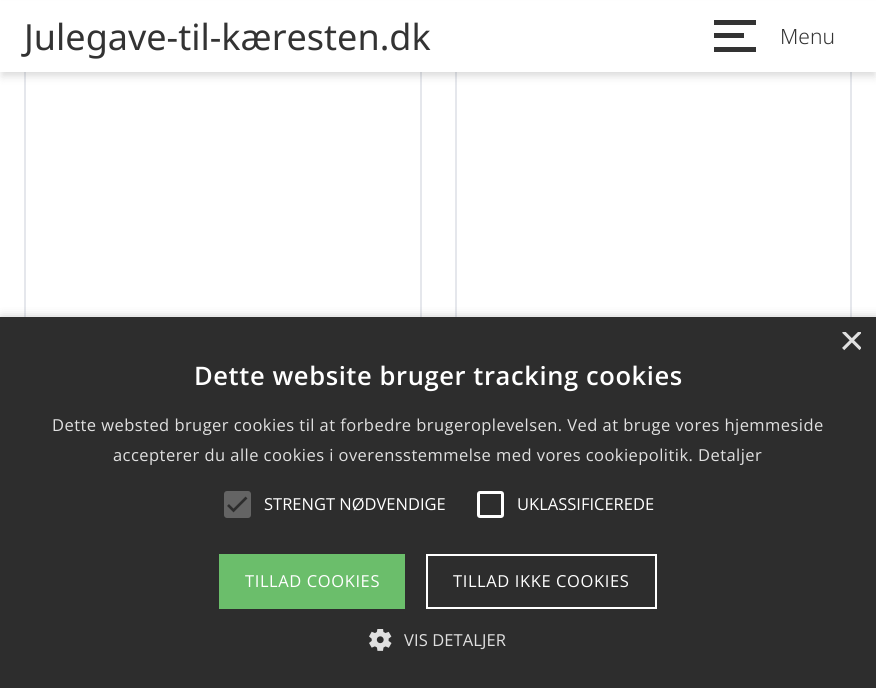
import math
import cairo


def write_spaced(ctx, x, y, s, letter, word):
	ctx.move_to(x, y)
	for ch in s:
		ctx.show_text(ch)
		ctx.rel_move_to(letter + word * (ch == ' '), 0)

def round_path(ctx, x, y, w, h, r):
	ctx.new_sub_path()
	for i, (u, v) in enumerate([(x + w - r, y + h - r), (x + r, y + h - r), (x + r, y + r), (x + w - r, y + r)]):
		ctx.arc(u, v, r, i * math.pi / 2, (i + 1) * math.pi / 2)
	ctx.close_path()

def blur_box(ctx, x, y, w, h, r, blur, alpha):
	ctx.push_group_with_content(cairo.CONTENT_ALPHA)
	ctx.set_operator(cairo.OPERATOR_SOURCE)
	for i in range(15, -16, -2):
		e = blur * i / 6
		if min(w, h) + 2 * e > 0:
			ctx.set_source_rgba(0, 0, 0, alpha * math.erfc((i - 1) / 8.5) / 2)
			round_path(ctx, x - e, y - e, w + 2 * e, h + 2 * e, max(0, min(r + e + blur * .6, min(w, h) / 2 + e)))
			ctx.fill()
	ctx.mask(ctx.pop_group())

def paste(ctx, path, x, y, w, h):
	ctx.save()
	ctx.set_source_surface(cairo.ImageSurface.create_from_png(path), x, y)
	ctx.rectangle(x, y, w, h)
	ctx.fill()
	ctx.restore()

def draw(ctx):
	ctx.set_source_rgb(1, 1, 1)
	ctx.paint()
	ctx.rectangle(25, 24, 396, 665)
	ctx.set_source_rgb(0.898, 0.906, 0.922)
	ctx.stroke()
	ctx.rectangle(456, 24, 395, 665)
	ctx.stroke()
	ctx.set_source_rgb(0, 0, 0)
	blur_box(ctx, 2, 5, 873, 69, 0, 3, 0.06)
	blur_box(ctx, 2, 8, 873, 69, 0, 4.5, 0.1)
	ctx.set_source_rgb(1, 1, 1)
	ctx.rectangle(0, 1, 876, 71)
	ctx.fill()
	ctx.select_font_face('Noto Sans')
	ctx.set_font_size(36)
	ctx.set_source_rgb(0.2, 0.2, 0.2)
	ctx.move_to(24, 50)
	ctx.show_text('Julegave-til-kæresten.dk')
	ctx.rectangle(714, 20, 42, 5)
	ctx.rectangle(714, 33, 30, 5)
	ctx.rectangle(714, 47, 42, 5)
	ctx.fill()
	ctx.select_font_face('Noto Sans Light')
	ctx.set_font_size(21)
	ctx.move_to(780, 44)
	ctx.show_text('Menu')
	ctx.set_source_rgb(0, 0, 0)
	blur_box(ctx, 2, 320, 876, 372, 0, 6, 0.35)
	ctx.set_source_rgb(0.176, 0.176, 0.176)
	ctx.rectangle(0, 317, 876, 371)
	ctx.fill()
	ctx.save()
	ctx.rectangle(839, 332, 22, 22)
	ctx.clip()
	ctx.select_font_face('Liberation Sans')
	ctx.set_font_size(44)
	ctx.set_source_rgb(0.878, 0.878, 0.878)
	ctx.move_to(839, 355)
	ctx.show_text('×')
	ctx.restore()
	ctx.select_font_face('Open Sans SemiBold')
	ctx.set_font_size(25.5)
	ctx.set_source_rgb(1, 1, 1)
	write_spaced(ctx, 194, 385, 'Dette website bruger tracking cookies', 0.6, 0)
	ctx.select_font_face('Open Sans')
	ctx.set_font_size(16.5)
	ctx.set_source_rgb(0.878, 0.878, 0.878)
	write_spaced(ctx, 52, 431, 'Dette websted bruger cookies til at forbedre brugeroplevelsen. Ved at bruge vores hjemmeside', 0.45, 0)
	write_spaced(ctx, 113, 461, 'accepterer du alle cookies i overensstemmelse med vores cookiepolitik. Detaljer', 0.45, 0)
	ctx.set_source_rgb(0.392, 0.392, 0.392)
	round_path(ctx, 224, 491, 27, 27, 3)
	ctx.fill()
	ctx.new_path()
	ctx.move_to(228, 505)
	ctx.line_to(233.5, 510.5)
	ctx.line_to(246.5, 497.5)
	ctx.set_source_rgb(0.176, 0.176, 0.176)
	ctx.set_line_width(2.7)
	ctx.stroke()
	ctx.set_source_rgb(1, 1, 1)
	ctx.move_to(264, 510)
	ctx.show_text('STRENGT NØDVENDIGE')
	round_path(ctx, 478.5, 492.5, 24, 24, 1.5)
	ctx.set_line_width(3)
	ctx.stroke()
	ctx.move_to(517, 510)
	ctx.show_text('UKLASSIFICEREDE')
	ctx.set_source_rgb(0.42, 0.745, 0.42)
	ctx.rectangle(219, 554, 186, 55)
	ctx.fill()
	ctx.set_source_rgb(1, 1, 1)
	write_spaced(ctx, 245, 587, 'TILLAD COOKIES', 0.6, 0)
	ctx.rectangle(427, 555, 229, 53)
	ctx.set_line_width(2)
	ctx.stroke()
	write_spaced(ctx, 453, 587, 'TILLAD IKKE COOKIES', 0.6, 0)
	paste(ctx, 'media/1.png', 369, 629, 23, 22)
	ctx.set_source_rgb(0.878, 0.878, 0.878)
	write_spaced(ctx, 404, 646, 'VIS DETALJER', 0.1, 0)


surface = cairo.ImageSurface(cairo.FORMAT_RGB24, 876, 688)
ctx = cairo.Context(surface)
options = cairo.FontOptions()
options.set_hint_metrics(cairo.HINT_METRICS_OFF)
options.set_hint_style(cairo.HINT_STYLE_NONE)
ctx.set_font_options(options)
ctx.set_miter_limit(4)
draw(ctx)
surface.write_to_png('image.png')
